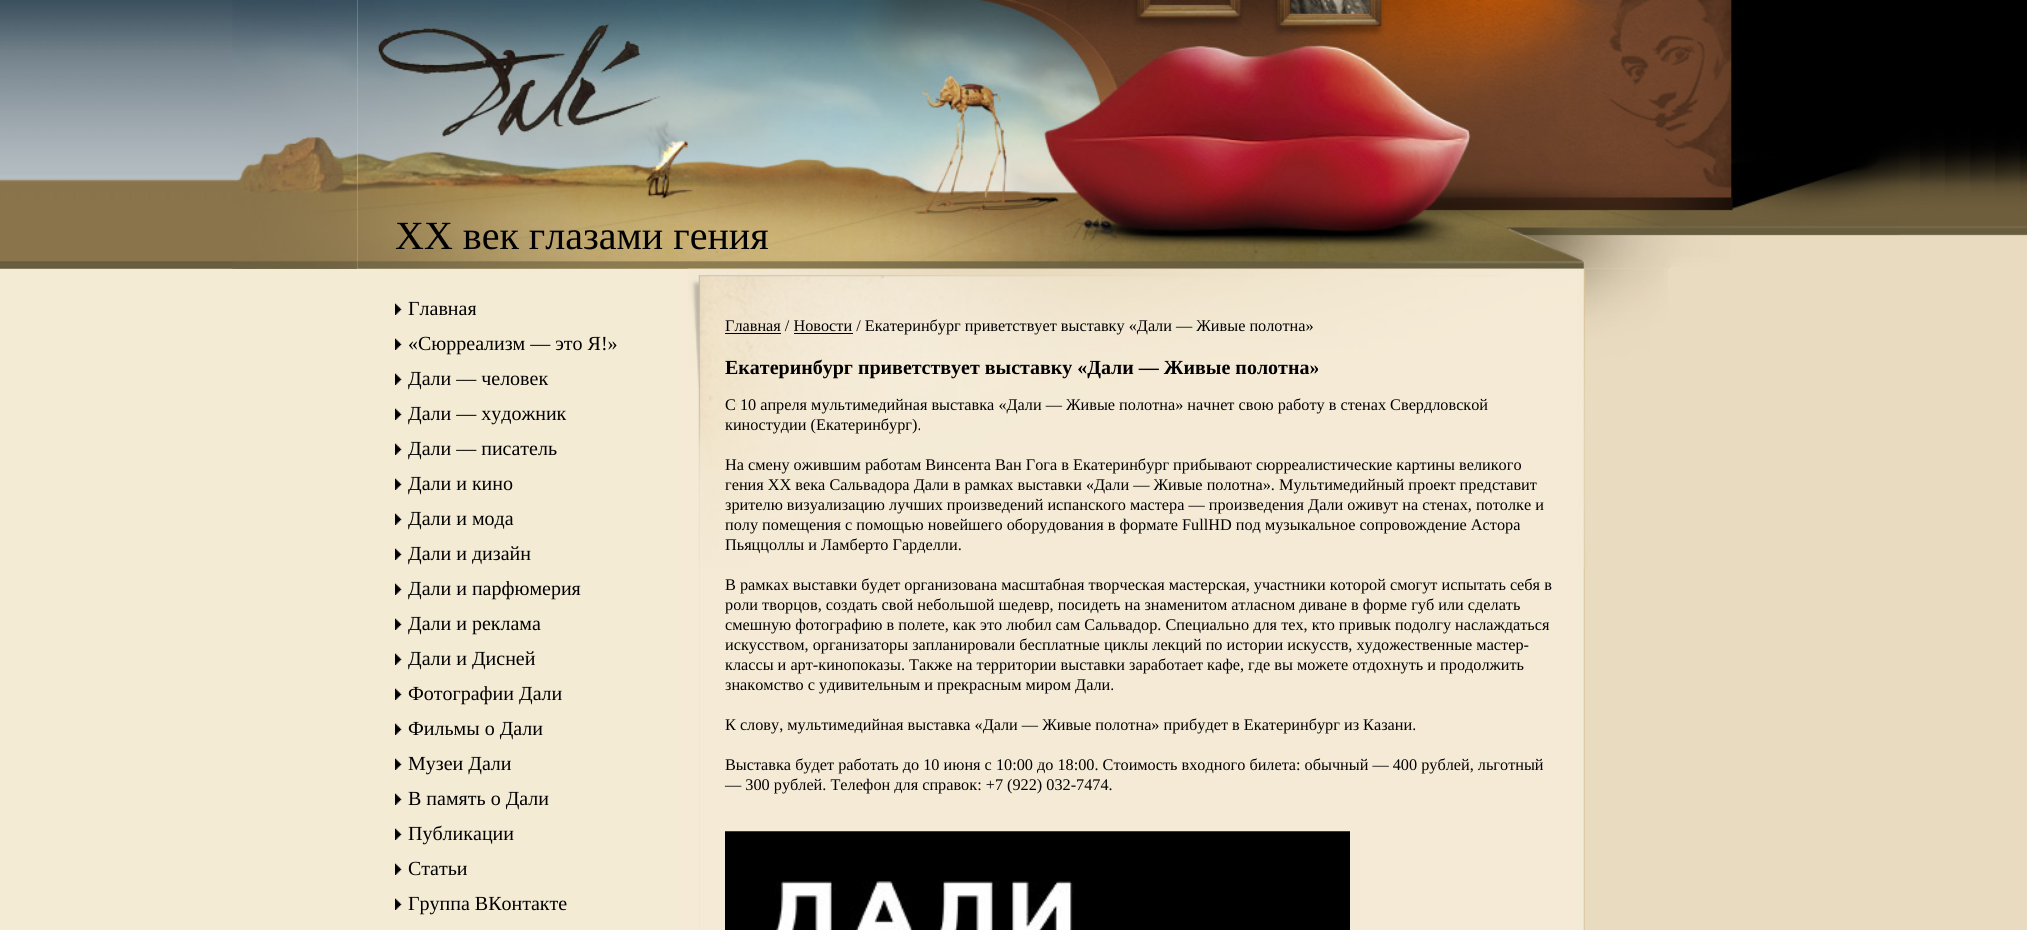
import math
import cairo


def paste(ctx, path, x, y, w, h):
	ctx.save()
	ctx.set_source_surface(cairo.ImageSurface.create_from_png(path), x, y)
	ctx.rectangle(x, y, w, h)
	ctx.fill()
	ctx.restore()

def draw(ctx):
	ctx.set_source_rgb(0.914, 0.859, 0.749)
	ctx.paint()
	paste(ctx, 'media/1.png', 0, 0, 358, 269)
	paste(ctx, 'media/2.png', 232, 0, 126, 269)
	paste(ctx, 'media/8.png', 675, 268, 910, 662)
	paste(ctx, 'media/3.png', 358, 0, 1312, 269)
	ctx.select_font_face('Liberation Serif')
	ctx.set_font_size(40)
	ctx.set_source_rgb(0, 0, 0)
	ctx.move_to(395, 249)
	ctx.show_text('ХХ век глазами гения')
	paste(ctx, 'media/4.png', 1898, 0, 129, 236)
	paste(ctx, 'media/5.png', 1670, 0, 229, 267)
	ctx.set_source_rgb(0.957, 0.918, 0.835)
	ctx.rectangle(0, 269, 675, 661)
	ctx.fill()
	paste(ctx, 'media/6.png', 395, 303, 7, 12)
	ctx.set_font_size(20)
	ctx.set_source_rgb(0, 0, 0)
	ctx.move_to(408, 315)
	ctx.show_text('Главная')
	paste(ctx, 'media/6.png', 395, 338, 7, 12)
	ctx.move_to(408, 350)
	ctx.show_text('«Сюрреализм — это Я!»')
	paste(ctx, 'media/6.png', 395, 373, 7, 12)
	ctx.move_to(408, 385)
	ctx.show_text('Дали — человек')
	paste(ctx, 'media/6.png', 395, 408, 7, 12)
	ctx.move_to(408, 420)
	ctx.show_text('Дали — художник')
	paste(ctx, 'media/6.png', 395, 443, 7, 12)
	ctx.move_to(408, 455)
	ctx.show_text('Дали — писатель')
	paste(ctx, 'media/6.png', 395, 478, 7, 12)
	ctx.move_to(408, 490)
	ctx.show_text('Дали и кино')
	paste(ctx, 'media/6.png', 395, 513, 7, 12)
	ctx.move_to(408, 525)
	ctx.show_text('Дали и мода')
	paste(ctx, 'media/6.png', 395, 548, 7, 12)
	ctx.move_to(408, 560)
	ctx.show_text('Дали и дизайн')
	paste(ctx, 'media/7.png', 395, 583, 7, 12)
	ctx.move_to(408, 595)
	ctx.show_text('Дали и парфюмерия')
	paste(ctx, 'media/6.png', 395, 618, 7, 12)
	ctx.move_to(408, 630)
	ctx.show_text('Дали и реклама')
	paste(ctx, 'media/6.png', 395, 653, 7, 12)
	ctx.move_to(408, 665)
	ctx.show_text('Дали и Дисней')
	paste(ctx, 'media/6.png', 395, 688, 7, 12)
	ctx.move_to(408, 700)
	ctx.show_text('Фотографии Дали')
	paste(ctx, 'media/6.png', 395, 723, 7, 12)
	ctx.move_to(408, 735)
	ctx.show_text('Фильмы о Дали')
	paste(ctx, 'media/6.png', 395, 758, 7, 12)
	ctx.move_to(408, 770)
	ctx.show_text('Музеи Дали')
	paste(ctx, 'media/6.png', 395, 793, 7, 12)
	ctx.move_to(408, 805)
	ctx.show_text('В память о Дали')
	paste(ctx, 'media/6.png', 395, 828, 7, 12)
	ctx.move_to(408, 840)
	ctx.show_text('Публикации')
	paste(ctx, 'media/6.png', 395, 863, 7, 12)
	ctx.move_to(408, 875)
	ctx.show_text('Статьи')
	paste(ctx, 'media/6.png', 395, 898, 7, 12)
	ctx.move_to(408, 910)
	ctx.show_text('Группа ВКонтакте')
	paste(ctx, 'media/9.png', 687, 268, 981, 301)
	ctx.rectangle(725, 333, 56, 1)
	ctx.fill()
	ctx.set_font_size(16.25)
	ctx.move_to(725, 331)
	ctx.show_text('Главная / Новости / Екатеринбург приветствует выставку «Дали — Живые полотна»')
	ctx.rectangle(794, 333, 59, 1)
	ctx.fill()
	ctx.select_font_face('Liberation Serif', cairo.FONT_SLANT_NORMAL, cairo.FONT_WEIGHT_BOLD)
	ctx.set_font_size(20)
	ctx.move_to(725, 374)
	ctx.show_text('Екатеринбург приветствует выставку «Дали — Живые полотна»')
	ctx.select_font_face('Liberation Serif')
	ctx.set_font_size(16.25)
	for x, y, s in [
		(725, 410, 'С 10 апреля мультимедийная выставка «Дали — Живые полотна» начнет свою работу в стенах Свердловской'),
		(725, 430, 'киностудии (Екатеринбург).'),
		(725, 470, 'На смену ожившим работам Винсента Ван Гога в Екатеринбург прибывают сюрреалистические картины великого'),
		(725, 490, 'гения ХХ века Сальвадора Дали в рамках выставки «Дали — Живые полотна». Мультимедийный проект представит'),
		(725, 510, 'зрителю визуализацию лучших произведений испанского мастера — произведения Дали оживут на стенах, потолке и'),
		(725, 530, 'полу помещения с помощью новейшего оборудования в формате FullHD под музыкальное сопровождение Астора'),
		(725, 550, 'Пьяццоллы и Ламберто Гарделли.'),
		(725, 590, 'В рамках выставки будет организована масштабная творческая мастерская, участники которой смогут испытать себя в'),
		(725, 610, 'роли творцов, создать свой небольшой шедевр, посидеть на знаменитом атласном диване в форме губ или сделать'),
		(725, 630, 'смешную фотографию в полете, как это любил сам Сальвадор. Специально для тех, кто привык подолгу наслаждаться'),
		(725, 650, 'искусством, организаторы запланировали бесплатные циклы лекций по истории искусств, художественные мастер-'),
		(725, 670, 'классы и арт-кинопоказы. Также на территории выставки заработает кафе, где вы можете отдохнуть и продолжить'),
		(725, 690, 'знакомство с удивительным и прекрасным миром Дали.'),
		(725, 730, 'К слову, мультимедийная выставка «Дали — Живые полотна» прибудет в Екатеринбург из Казани.'),
		(725, 770, 'Выставка будет работать до 10 июня c 10:00 до 18:00. Стоимость входного билета: обычный — 400 рублей, льготный'),
		(725, 790, '— 300 рублей. Телефон для справок: +7 (922) 032-7474.'),
	]:
		ctx.move_to(x, y)
		ctx.show_text(s)
	paste(ctx, 'media/10.png', 725, 831, 625, 99)


surface = cairo.ImageSurface(cairo.FORMAT_RGB24, 2027, 930)
ctx = cairo.Context(surface)
options = cairo.FontOptions()
options.set_hint_metrics(cairo.HINT_METRICS_OFF)
options.set_hint_style(cairo.HINT_STYLE_NONE)
ctx.set_font_options(options)
ctx.set_miter_limit(4)
draw(ctx)
surface.write_to_png('image.png')
